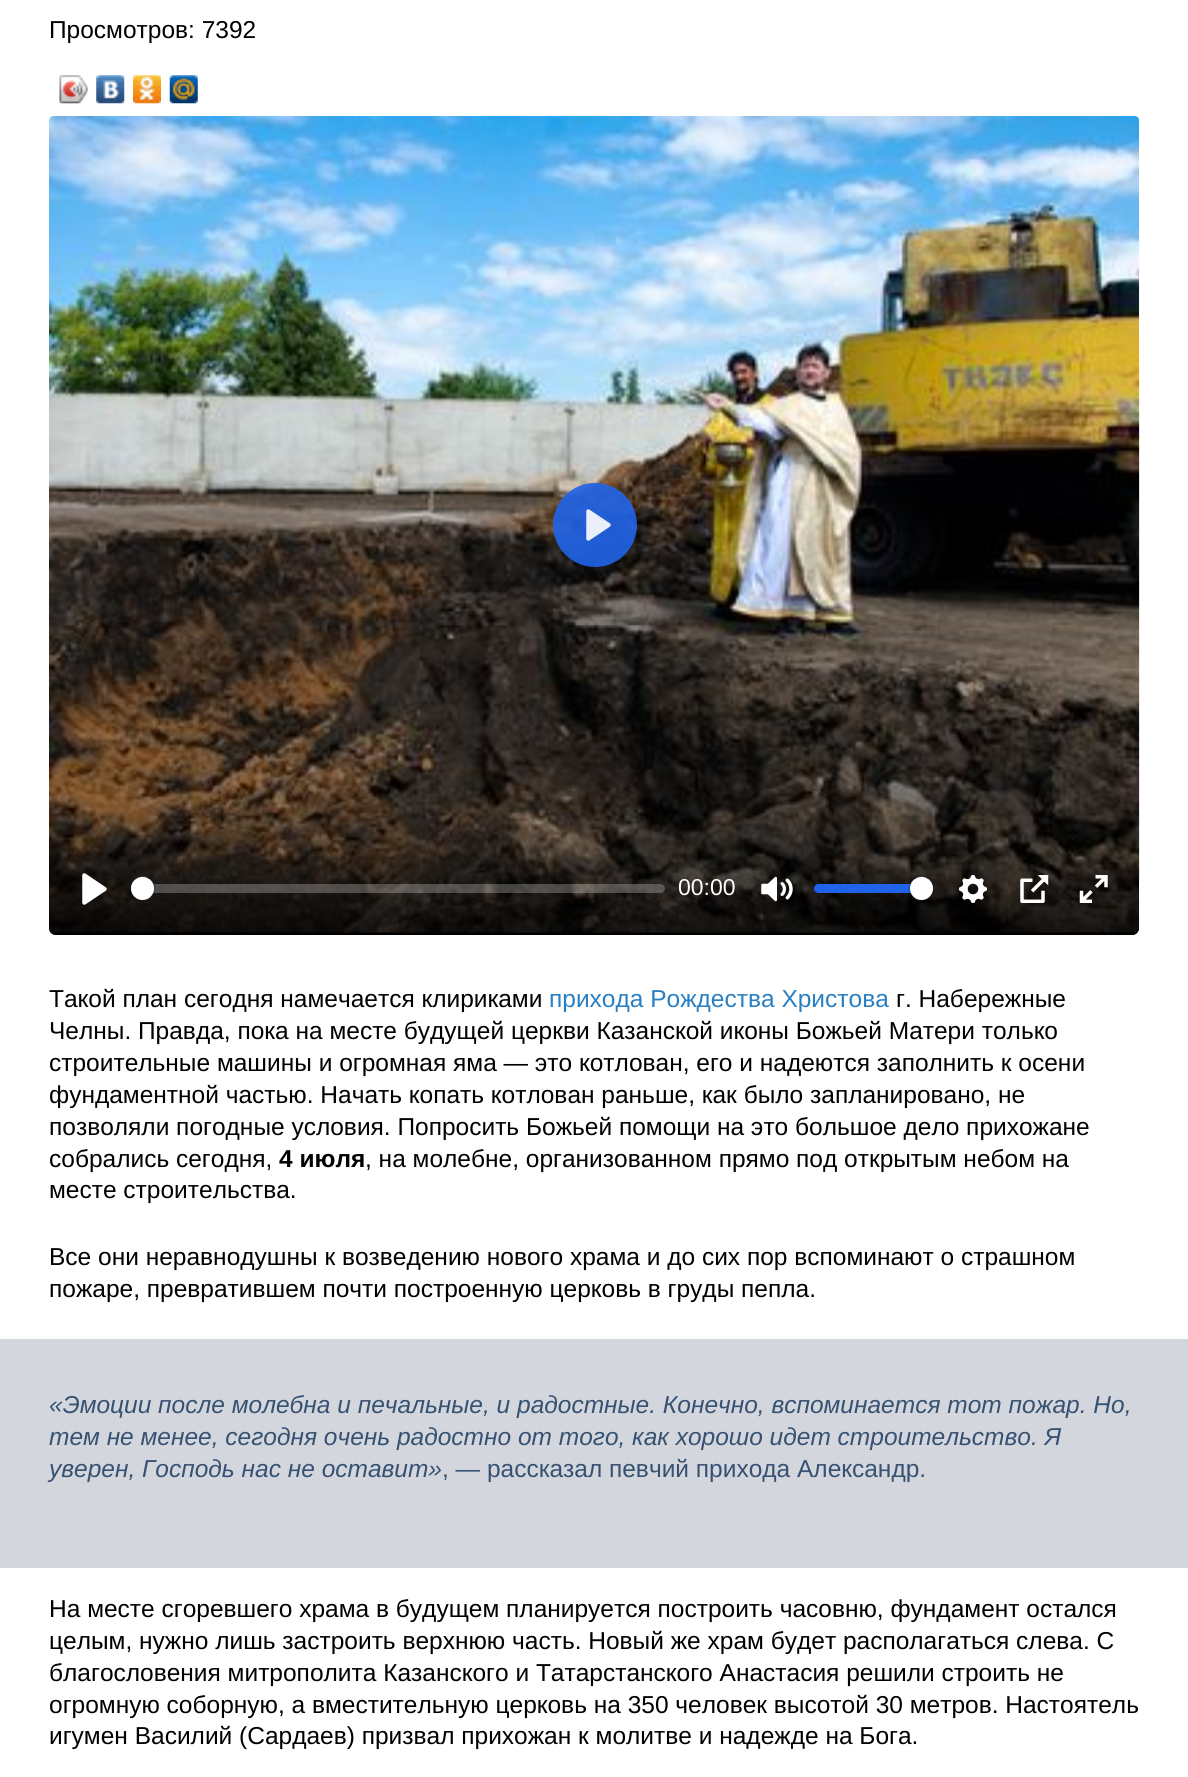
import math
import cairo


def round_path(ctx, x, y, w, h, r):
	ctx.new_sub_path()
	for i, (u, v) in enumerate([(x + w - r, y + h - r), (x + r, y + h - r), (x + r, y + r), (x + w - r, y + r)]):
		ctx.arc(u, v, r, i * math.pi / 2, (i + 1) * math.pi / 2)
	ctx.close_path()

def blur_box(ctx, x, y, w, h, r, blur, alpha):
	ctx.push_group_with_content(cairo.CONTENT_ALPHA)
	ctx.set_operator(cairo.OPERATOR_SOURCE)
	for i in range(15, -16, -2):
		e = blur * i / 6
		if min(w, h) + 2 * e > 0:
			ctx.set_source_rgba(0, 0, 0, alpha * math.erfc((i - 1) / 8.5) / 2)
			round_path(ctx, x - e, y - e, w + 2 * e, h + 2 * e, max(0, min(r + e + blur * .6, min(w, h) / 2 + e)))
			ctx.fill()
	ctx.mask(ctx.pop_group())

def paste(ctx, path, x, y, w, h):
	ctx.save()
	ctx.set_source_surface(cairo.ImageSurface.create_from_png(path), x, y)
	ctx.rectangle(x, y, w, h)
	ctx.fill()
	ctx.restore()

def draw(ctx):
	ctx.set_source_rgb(1, 1, 1)
	ctx.paint()
	ctx.select_font_face('Liberation Sans')
	ctx.set_font_size(24.5)
	ctx.set_source_rgb(0, 0, 0)
	ctx.move_to(49, 38)
	ctx.show_text('Просмотров: 7392')
	paste(ctx, 'media/1.png', 59, 75, 29, 29)
	paste(ctx, 'media/2.png', 59, 75, 29, 29)
	paste(ctx, 'media/3.png', 96, 75, 29, 29)
	paste(ctx, 'media/4.png', 133, 75, 28, 29)
	paste(ctx, 'media/5.png', 169, 75, 29, 29)
	paste(ctx, 'media/6.png', 49, 116, 1091, 816)
	round_path(ctx, 49, 116, 1090, 819, 7)
	ctx.fill()
	paste(ctx, 'media/7.png', 49, 116, 1091, 817)
	ctx.set_source_rgba(0.129, 0.388, 0.91, 0.9)
	ctx.arc(595, 525, 42, 0, 2 * math.pi)
	ctx.fill()
	paste(ctx, 'media/8.png', 586, 509, 25, 32)
	gradient = cairo.LinearGradient(594, 800, 594, 935)
	gradient.add_color_stop_rgba(0, 0, 0, 0, 0)
	gradient.add_color_stop_rgba(1, 0, 0, 0, 0.75)
	ctx.set_source(gradient)
	ctx.new_path()
	ctx.move_to(49, 800)
	ctx.line_to(1139, 800)
	ctx.line_to(1139, 928)
	ctx.curve_to(1139, 932, 1136, 935, 1132, 935)
	ctx.line_to(56, 935)
	ctx.curve_to(52, 935, 49, 932, 49, 928)
	ctx.close_path()
	ctx.fill()
	paste(ctx, 'media/9.png', 82, 873, 25, 32)
	ctx.set_source_rgba(1, 1, 1, 0.25)
	round_path(ctx, 131, 884, 534, 9, 4.5)
	ctx.fill()
	ctx.arc(143, 888, 12, 0, 2 * math.pi)
	ctx.set_source_rgba(0.137, 0.157, 0.184, 0.2)
	ctx.stroke()
	ctx.set_source_rgb(0.137, 0.157, 0.184)
	blur_box(ctx, 131, 879, 23, 22, 11, 1, 0.15)
	ctx.set_source_rgb(1, 1, 1)
	ctx.arc(142.5, 888.5, 11.5, 0, 2 * math.pi)
	ctx.fill()
	ctx.set_font_size(23)
	ctx.move_to(678, 895)
	ctx.show_text('00:00')
	paste(ctx, 'media/10.png', 761, 876, 32, 26)
	ctx.set_source_rgb(0.129, 0.388, 0.91)
	round_path(ctx, 814, 884, 119, 9, 4.5)
	ctx.fill()
	round_path(ctx, 909, 876, 25, 24, 12)
	ctx.set_source_rgba(0.137, 0.157, 0.184, 0.2)
	ctx.stroke()
	ctx.set_source_rgb(0.137, 0.157, 0.184)
	blur_box(ctx, 910, 879, 23, 22, 11, 1, 0.15)
	ctx.set_source_rgb(1, 1, 1)
	ctx.arc(921.5, 888.5, 11.5, 0, 2 * math.pi)
	ctx.fill()
	paste(ctx, 'media/11.png', 959, 875, 28, 28)
	paste(ctx, 'media/12.png', 1020, 875, 29, 28)
	paste(ctx, 'media/13.png', 1079, 875, 29, 28)
	ctx.set_font_size(24.5)
	ctx.set_source_rgb(0, 0, 0)
	ctx.move_to(49, 1007)
	ctx.show_text('Такой план сегодня намечается клириками')
	ctx.set_source_rgb(0.157, 0.498, 0.765)
	ctx.move_to(549, 1007)
	ctx.show_text('прихода Рождества Христова')
	ctx.set_source_rgb(0, 0, 0)
	for x, y, s in [
		(896, 1007, 'г. Набережные'),
		(49, 1039, 'Челны. Правда, пока на месте будущей церкви Казанской иконы Божьей Матери только'),
		(49, 1071, 'строительные машины и огромная яма — это котлован, его и надеются заполнить к осени'),
		(49, 1103, 'фундаментной частью. Начать копать котлован раньше, как было запланировано, не'),
		(49, 1135, 'позволяли погодные условия. Попросить Божьей помощи на это большое дело прихожане'),
		(49, 1167, 'собрались сегодня,'),
	]:
		ctx.move_to(x, y)
		ctx.show_text(s)
	ctx.select_font_face('Liberation Sans', cairo.FONT_SLANT_NORMAL, cairo.FONT_WEIGHT_BOLD)
	ctx.move_to(279, 1167)
	ctx.show_text('4 июля')
	ctx.select_font_face('Liberation Sans')
	for x, y, s in [
		(365, 1167, ', на молебне, организованном прямо под открытым небом на'),
		(49, 1198, 'месте строительства.'),
		(49, 1265, 'Все они неравнодушны к возведению нового храма и до сих пор вспоминают о страшном'),
		(49, 1297, 'пожаре, превратившем почти построенную церковь в груды пепла.'),
	]:
		ctx.move_to(x, y)
		ctx.show_text(s)
	ctx.set_source_rgb(0.827, 0.843, 0.867)
	ctx.rectangle(0, 1339, 1188, 229)
	ctx.fill()
	ctx.select_font_face('Liberation Sans', cairo.FONT_SLANT_ITALIC)
	ctx.set_source_rgb(0.216, 0.318, 0.447)
	for x, y, s in [
		(49, 1413, '«Эмоции после молебна и печальные, и радостные. Конечно, вспоминается тот пожар. Но,'),
		(49, 1445, 'тем не менее, сегодня очень радостно от того, как хорошо идет строительство. Я'),
		(49, 1477, 'уверен, Господь нас не оставит»'),
	]:
		ctx.move_to(x, y)
		ctx.show_text(s)
	ctx.select_font_face('Liberation Sans')
	ctx.move_to(442, 1477)
	ctx.show_text(', — рассказал певчий прихода Александр.')
	ctx.set_source_rgb(0, 0, 0)
	for x, y, s in [
		(49, 1617, 'На месте сгоревшего храма в будущем планируется построить часовню, фундамент остался'),
		(49, 1649, 'целым, нужно лишь застроить верхнюю часть. Новый же храм будет располагаться слева. С'),
		(49, 1681, 'благословения митрополита Казанского и Татарстанского Анастасия решили строить не'),
		(49, 1713, 'огромную соборную, а вместительную церковь на 350 человек высотой 30 метров. Настоятель'),
		(49, 1744, 'игумен Василий (Сардаев) призвал прихожан к молитве и надежде на Бога.'),
	]:
		ctx.move_to(x, y)
		ctx.show_text(s)


surface = cairo.ImageSurface(cairo.FORMAT_RGB24, 1188, 1777)
ctx = cairo.Context(surface)
options = cairo.FontOptions()
options.set_hint_metrics(cairo.HINT_METRICS_OFF)
options.set_hint_style(cairo.HINT_STYLE_NONE)
ctx.set_font_options(options)
ctx.set_miter_limit(4)
draw(ctx)
surface.write_to_png('image.png')
